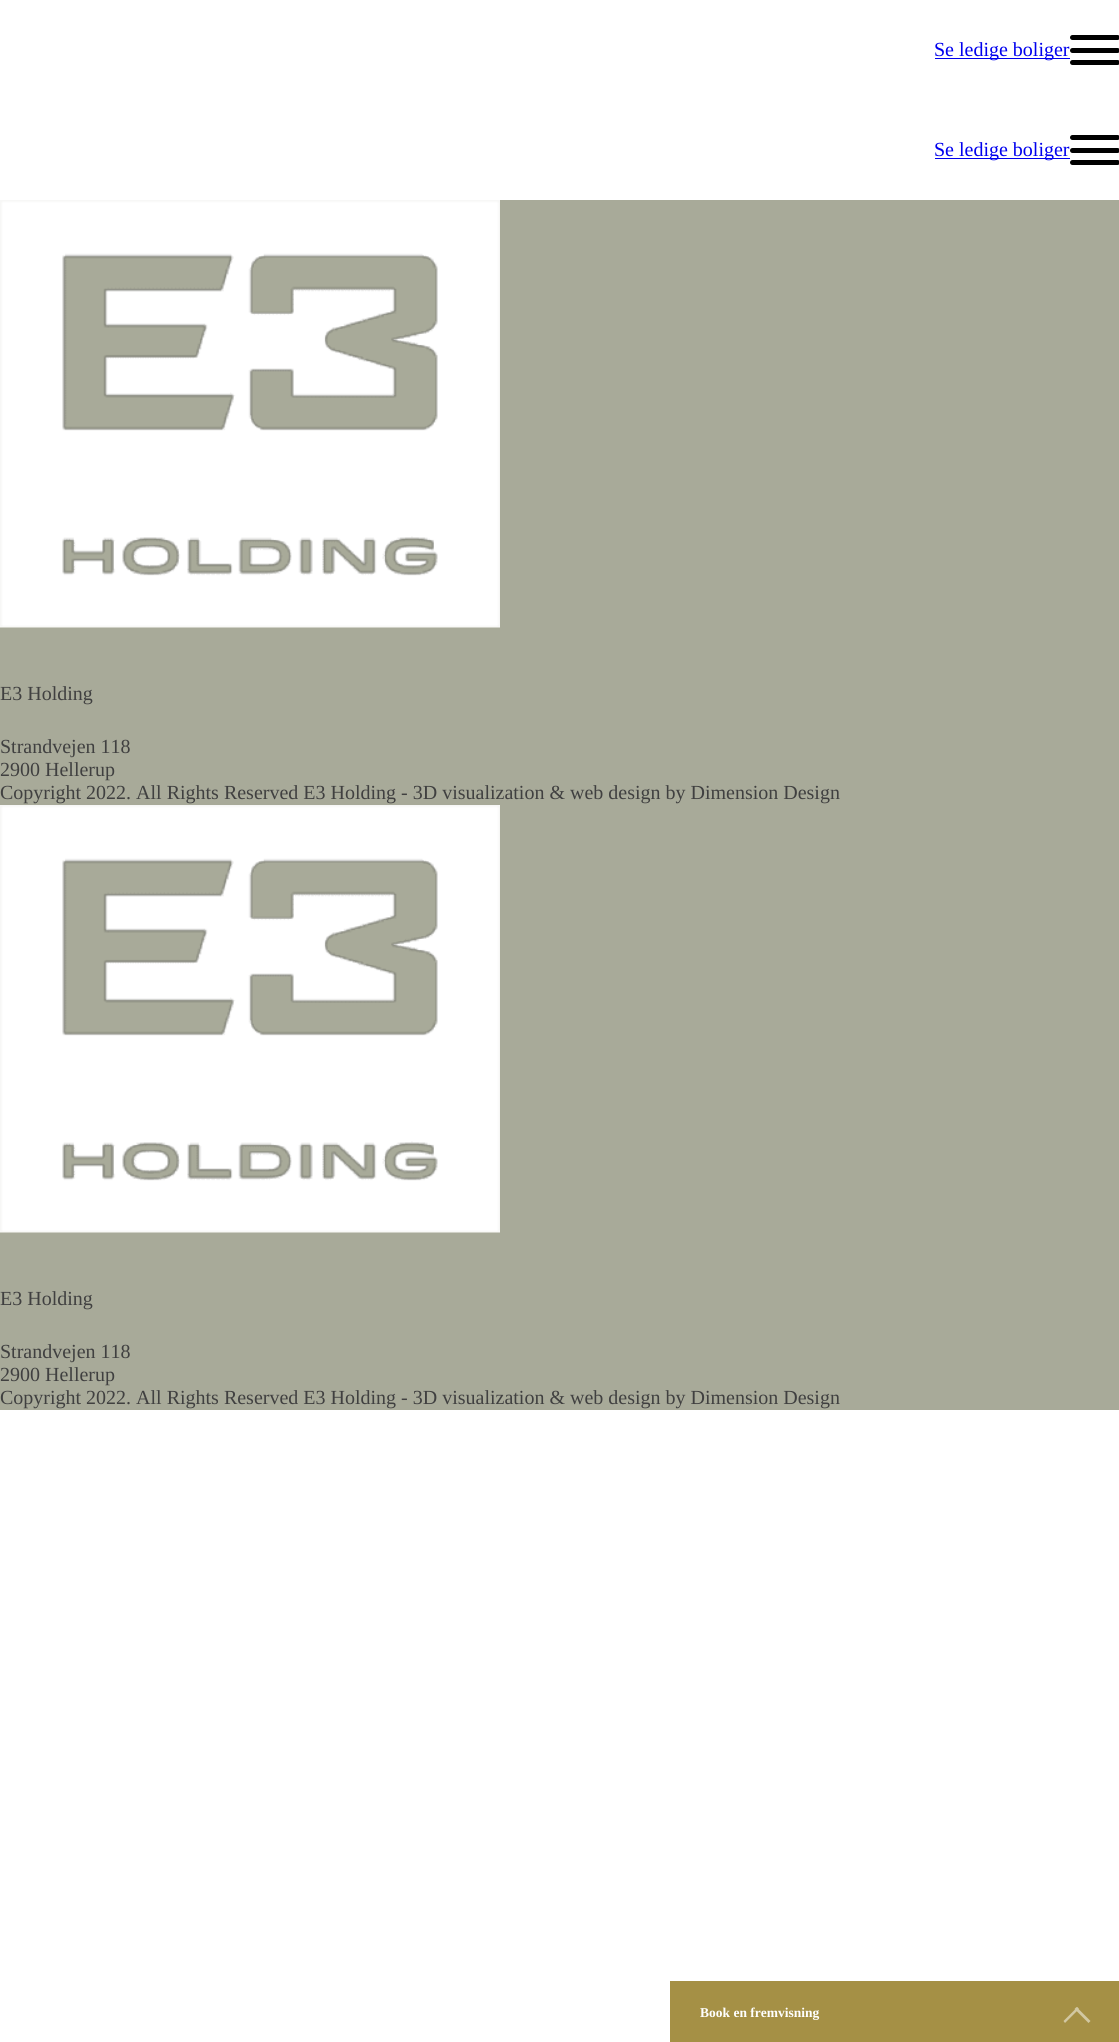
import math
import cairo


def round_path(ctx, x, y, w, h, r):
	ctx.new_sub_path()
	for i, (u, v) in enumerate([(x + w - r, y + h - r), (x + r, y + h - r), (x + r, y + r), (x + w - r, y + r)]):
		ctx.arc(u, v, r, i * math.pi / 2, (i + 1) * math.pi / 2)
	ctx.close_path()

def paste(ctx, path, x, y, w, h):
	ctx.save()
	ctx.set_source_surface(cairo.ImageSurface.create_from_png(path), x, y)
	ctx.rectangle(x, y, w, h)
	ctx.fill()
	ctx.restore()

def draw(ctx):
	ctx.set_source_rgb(1, 1, 1)
	ctx.paint()
	ctx.set_source_rgb(0, 0, 0.933)
	ctx.rectangle(935, 58, 135, 1)
	ctx.fill()
	ctx.select_font_face('Liberation Serif')
	ctx.set_font_size(20)
	ctx.move_to(934, 56)
	ctx.show_text('Se ledige boliger')
	ctx.set_source_rgb(0, 0, 0)
	round_path(ctx, 1070, 35, 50, 5, 2.5)
	ctx.fill()
	round_path(ctx, 1070, 48, 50, 5, 2.5)
	ctx.fill()
	round_path(ctx, 1070, 60, 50, 5, 2.5)
	ctx.fill()
	ctx.set_source_rgb(0, 0, 0.933)
	ctx.rectangle(935, 158, 135, 1)
	ctx.fill()
	ctx.move_to(934, 156)
	ctx.show_text('Se ledige boliger')
	ctx.set_source_rgb(0, 0, 0)
	round_path(ctx, 1070, 135, 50, 5, 2.5)
	ctx.fill()
	round_path(ctx, 1070, 148, 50, 5, 2.5)
	ctx.fill()
	round_path(ctx, 1070, 160, 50, 5, 2.5)
	ctx.fill()
	ctx.set_source_rgb(0.659, 0.667, 0.6)
	ctx.rectangle(0, 200, 1119, 1210)
	ctx.fill()
	paste(ctx, 'media/1.png', 0, 200, 500, 428)
	ctx.set_source_rgb(0.251, 0.251, 0.251)
	for x, y, s in [
		(0, 700, 'E3 Holding'),
		(0, 753, 'Strandvejen 118'),
		(0, 776, '2900 Hellerup'),
		(0, 799, 'Copyright 2022. All Rights Reserved E3 Holding - 3D visualization & web design by Dimension Design'),
	]:
		ctx.move_to(x, y)
		ctx.show_text(s)
	paste(ctx, 'media/1.png', 0, 805, 500, 428)
	for x, y, s in [
		(0, 1305, 'E3 Holding'),
		(0, 1358, 'Strandvejen 118'),
		(0, 1381, '2900 Hellerup'),
		(0, 1404, 'Copyright 2022. All Rights Reserved E3 Holding - 3D visualization & web design by Dimension Design'),
	]:
		ctx.move_to(x, y)
		ctx.show_text(s)
	ctx.set_source_rgb(0.647, 0.565, 0.271)
	ctx.rectangle(670, 1981, 449, 61)
	ctx.fill()
	ctx.select_font_face('Liberation Serif', cairo.FONT_SLANT_NORMAL, cairo.FONT_WEIGHT_BOLD)
	ctx.set_font_size(13.5)
	ctx.set_source_rgb(1, 1, 1)
	ctx.move_to(700, 2017)
	ctx.show_text('Book en fremvisning')
	ctx.set_source_rgb(0.824, 0.784, 0.635)
	ctx.new_path()
	ctx.move_to(1077.5, 2007)
	ctx.line_to(1079, 2009)
	ctx.line_to(1065, 2023)
	ctx.line_to(1063.5, 2021)
	ctx.close_path()
	ctx.fill()
	ctx.new_path()
	ctx.move_to(1074.5, 2009)
	ctx.line_to(1076.5, 2007)
	ctx.line_to(1090.5, 2021)
	ctx.line_to(1088.5, 2023)
	ctx.close_path()
	ctx.fill()


surface = cairo.ImageSurface(cairo.FORMAT_RGB24, 1119, 2042)
ctx = cairo.Context(surface)
options = cairo.FontOptions()
options.set_hint_metrics(cairo.HINT_METRICS_OFF)
options.set_hint_style(cairo.HINT_STYLE_NONE)
ctx.set_font_options(options)
ctx.set_miter_limit(4)
draw(ctx)
surface.write_to_png('image.png')
